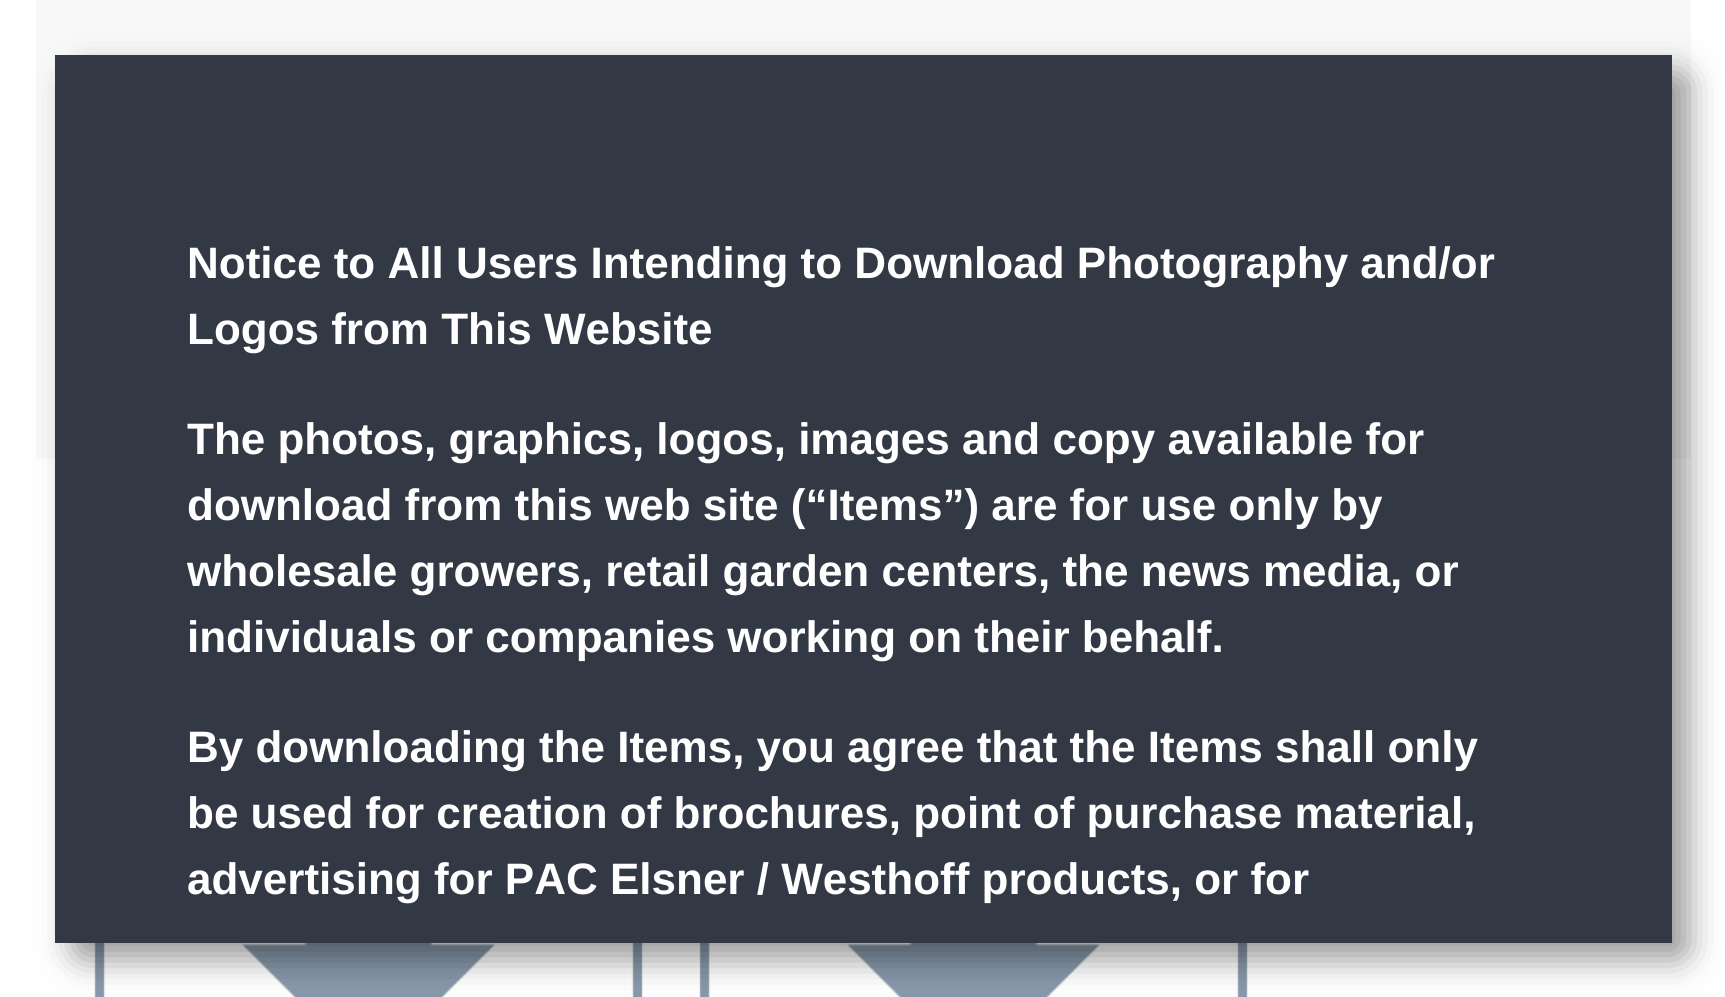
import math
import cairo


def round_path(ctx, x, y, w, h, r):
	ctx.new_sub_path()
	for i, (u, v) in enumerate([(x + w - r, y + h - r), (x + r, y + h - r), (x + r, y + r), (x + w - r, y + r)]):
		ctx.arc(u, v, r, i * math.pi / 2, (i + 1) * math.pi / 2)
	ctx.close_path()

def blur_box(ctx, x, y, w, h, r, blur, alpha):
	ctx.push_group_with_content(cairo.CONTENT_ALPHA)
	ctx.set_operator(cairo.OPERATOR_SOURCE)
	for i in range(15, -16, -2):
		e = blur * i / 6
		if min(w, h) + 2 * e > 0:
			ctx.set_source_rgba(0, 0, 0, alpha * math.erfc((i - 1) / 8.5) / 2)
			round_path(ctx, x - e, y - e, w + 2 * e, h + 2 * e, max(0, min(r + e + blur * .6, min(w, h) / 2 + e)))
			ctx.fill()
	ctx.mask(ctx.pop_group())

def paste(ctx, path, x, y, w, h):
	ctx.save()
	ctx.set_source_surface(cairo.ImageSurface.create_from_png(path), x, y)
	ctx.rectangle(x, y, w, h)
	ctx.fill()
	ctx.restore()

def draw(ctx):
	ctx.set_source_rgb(1, 1, 1)
	ctx.paint()
	ctx.set_source_rgb(0.969, 0.969, 0.969)
	ctx.rectangle(36, 0, 1655, 459)
	ctx.fill()
	paste(ctx, 'media/1.png', 94, 943, 549, 54)
	paste(ctx, 'media/1.png', 699, 943, 549, 54)
	ctx.set_source_rgb(0, 0, 0)
	blur_box(ctx, 72, 72, 1617, 888, 11, 16.5, 0.4)
	ctx.set_source_rgb(0.196, 0.224, 0.267)
	ctx.rectangle(55, 55, 1617, 888)
	ctx.fill()
	ctx.select_font_face('Liberation Sans', cairo.FONT_SLANT_NORMAL, cairo.FONT_WEIGHT_BOLD)
	ctx.set_font_size(44)
	ctx.set_source_rgb(1, 1, 1)
	for x, y, s in [
		(187, 278, 'Notice to All Users Intending to Download Photography and/or'),
		(187, 344, 'Logos from This Website'),
		(187, 454, 'The photos, graphics, logos, images and copy available for'),
		(187, 520, 'download from this web site (“Items”) are for use only by'),
		(187, 586, 'wholesale growers, retail garden centers, the news media, or'),
		(187, 652, 'individuals or companies working on their behalf.'),
		(187, 762, 'By downloading the Items, you agree that the Items shall only'),
		(187, 828, 'be used for creation of brochures, point of purchase material,'),
		(187, 894, 'advertising for PAC Elsner / Westhoff products, or for'),
	]:
		ctx.move_to(x, y)
		ctx.show_text(s)


surface = cairo.ImageSurface(cairo.FORMAT_RGB24, 1725, 997)
ctx = cairo.Context(surface)
options = cairo.FontOptions()
options.set_hint_metrics(cairo.HINT_METRICS_OFF)
options.set_hint_style(cairo.HINT_STYLE_NONE)
ctx.set_font_options(options)
ctx.set_miter_limit(4)
draw(ctx)
surface.write_to_png('image.png')
